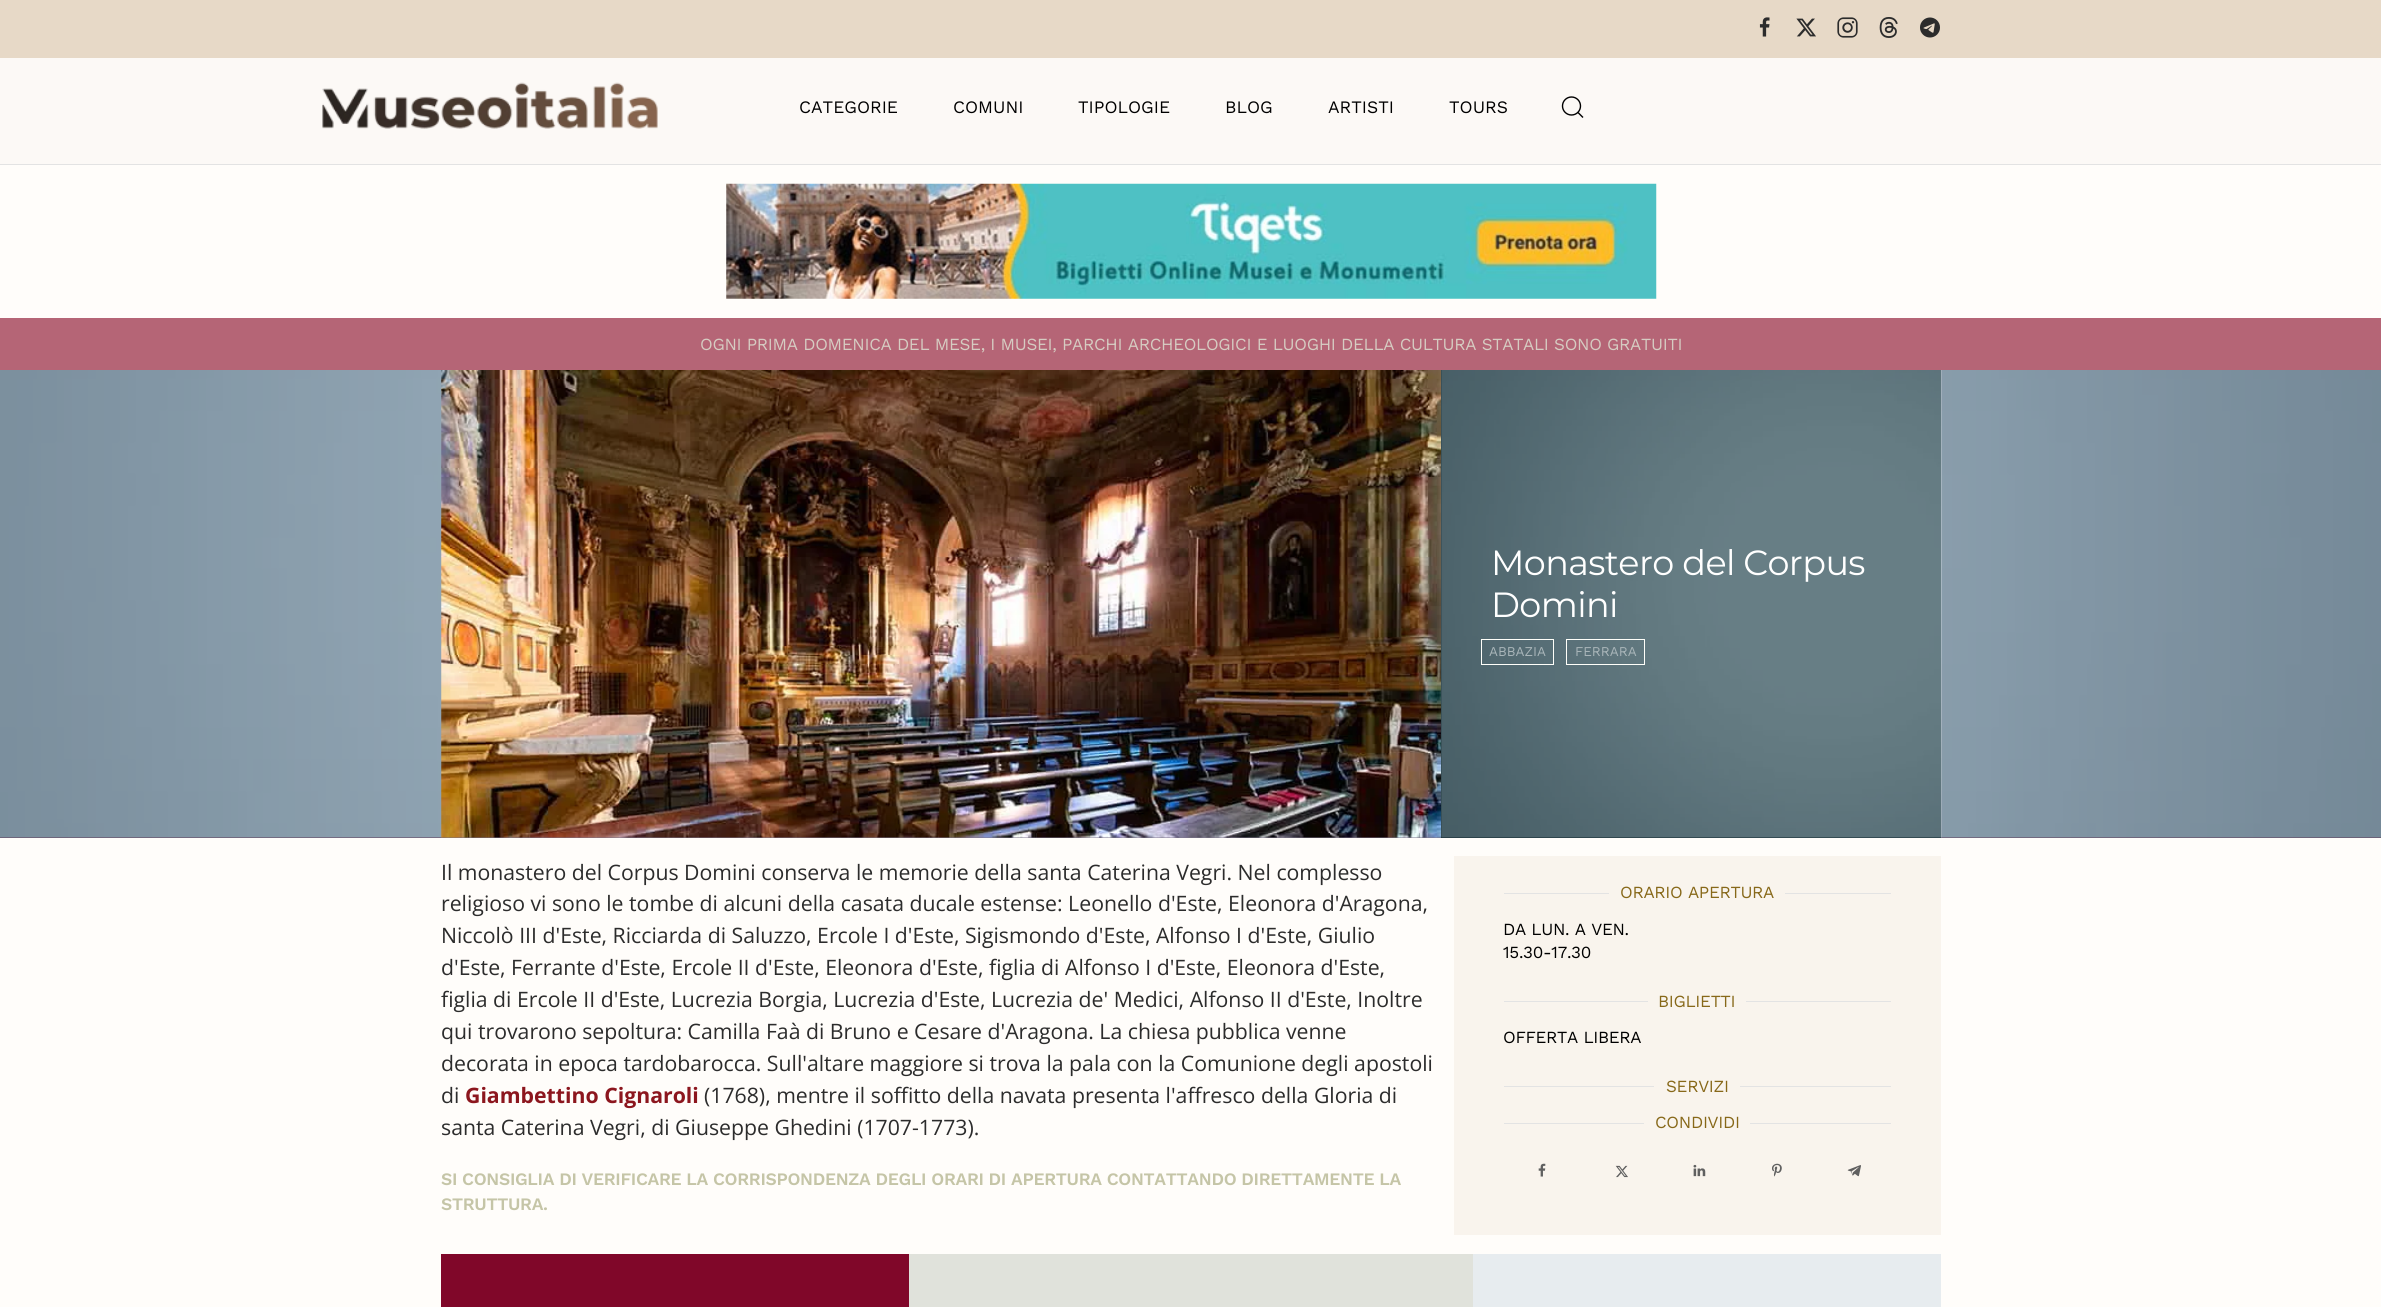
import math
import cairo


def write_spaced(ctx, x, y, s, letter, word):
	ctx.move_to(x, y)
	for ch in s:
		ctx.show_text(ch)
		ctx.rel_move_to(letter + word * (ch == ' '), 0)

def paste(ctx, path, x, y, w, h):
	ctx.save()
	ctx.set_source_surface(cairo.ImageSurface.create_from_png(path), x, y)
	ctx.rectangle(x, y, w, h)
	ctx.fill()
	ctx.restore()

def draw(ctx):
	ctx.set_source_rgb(1, 0.992, 0.98)
	ctx.paint()
	ctx.set_source_rgb(0.906, 0.851, 0.78)
	ctx.rectangle(0, 0, 2381, 58)
	ctx.fill()
	paste(ctx, 'media/1.png', 1759, 17, 11, 20)
	paste(ctx, 'media/2.png', 1796, 18, 20, 19)
	paste(ctx, 'media/3.png', 1837, 17, 21, 21)
	paste(ctx, 'media/4.png', 1879, 17, 19, 21)
	paste(ctx, 'media/5.png', 1920, 17, 20, 21)
	ctx.set_source_rgb(0.988, 0.973, 0.961)
	ctx.rectangle(0, 58, 2381, 106)
	ctx.fill()
	ctx.set_source_rgb(0.89, 0.89, 0.89)
	ctx.rectangle(0, 164, 2381, 1)
	ctx.fill()
	paste(ctx, 'media/6.png', 322, 82, 336, 47)
	ctx.select_font_face('Work Sans')
	ctx.set_font_size(17.5)
	ctx.set_source_rgb(0, 0, 0)
	for x, y, s in [
		(799, 113, 'CATEGORIE'),
		(953, 113, 'COMUNI'),
		(1078, 113, 'TIPOLOGIE'),
		(1225, 113, 'BLOG'),
		(1328, 113, 'ARTISTI'),
		(1449, 113, 'TOURS'),
	]:
		ctx.move_to(x, y)
		ctx.show_text(s)
	ctx.new_path()
	ctx.arc(1571.5, 106, 9, 0, 2 * math.pi)
	ctx.set_line_width(1.4)
	ctx.stroke()
	ctx.new_path()
	ctx.move_to(1578, 112.5)
	ctx.line_to(1583, 117.5)
	ctx.close_path()
	ctx.stroke()
	paste(ctx, 'media/7.png', 726, 183, 931, 116)
	ctx.set_source_rgb(0.71, 0.396, 0.463)
	ctx.rectangle(0, 318, 2381, 52)
	ctx.fill()
	ctx.set_font_size(17)
	ctx.set_source_rgb(0.839, 0.8, 0.761)
	write_spaced(ctx, 700, 350, 'OGNI PRIMA DOMENICA DEL MESE, I MUSEI, PARCHI ARCHEOLOGICI E LUOGHI DELLA CULTURA STATALI SONO GRATUITI', -0.31, 0)
	ctx.set_source_rgb(0.38, 0.235, 0.349)
	ctx.rectangle(0, 837, 2381, 1)
	ctx.fill()
	paste(ctx, 'media/8.png', 0, 370, 2381, 468)
	paste(ctx, 'media/9.png', 441, 370, 1000, 468)
	ctx.set_source_rgb(0.071, 0.075, 0.078)
	ctx.rectangle(1441, 370, 500, 468)
	ctx.fill()
	paste(ctx, 'media/10.png', 1441, 370, 501, 468)
	ctx.set_source_rgba(0.047, 0.192, 0.239, 0.62)
	ctx.rectangle(1441, 370, 500, 468)
	ctx.fill()
	ctx.select_font_face('Montserrat')
	ctx.set_font_size(35)
	ctx.set_source_rgb(1, 1, 1)
	write_spaced(ctx, 1491, 575, 'Monastero del Corpus', -0.6, 0)
	write_spaced(ctx, 1491, 617, 'Domini', -0.6, 0)
	ctx.rectangle(1481.5, 639.5, 72, 25)
	ctx.set_source_rgb(1, 1, 0.98)
	ctx.set_line_width(1)
	ctx.stroke()
	ctx.select_font_face('Work Sans')
	ctx.set_font_size(13.5)
	ctx.set_source_rgb(0.663, 0.71, 0.725)
	ctx.move_to(1489, 656)
	ctx.show_text('ABBAZIA')
	ctx.rectangle(1566.5, 639.5, 78, 25)
	ctx.set_source_rgb(1, 1, 0.98)
	ctx.stroke()
	ctx.set_source_rgb(0.663, 0.71, 0.725)
	ctx.move_to(1575, 656)
	ctx.show_text('FERRARA')
	ctx.select_font_face('Open Sans')
	ctx.set_font_size(21.25)
	ctx.set_source_rgb(0.173, 0.173, 0.173)
	for x, y, s in [
		(441, 880, 'Il monastero del Corpus Domini conserva le memorie della santa Caterina Vegri. Nel complesso'),
		(441, 911, 'religioso vi sono le tombe di alcuni della casata ducale estense: Leonello d\'Este, Eleonora d\'Aragona,'),
		(441, 943, 'Niccolò III d\'Este, Ricciarda di Saluzzo, Ercole I d\'Este, Sigismondo d\'Este, Alfonso I d\'Este, Giulio'),
		(441, 975, 'd\'Este, Ferrante d\'Este, Ercole II d\'Este, Eleonora d\'Este, figlia di Alfonso I d\'Este, Eleonora d\'Este,'),
		(441, 1007, 'figlia di Ercole II d\'Este, Lucrezia Borgia, Lucrezia d\'Este, Lucrezia de\' Medici, Alfonso II d\'Este, Inoltre'),
		(441, 1039, 'qui trovarono sepoltura: Camilla Faà di Bruno e Cesare d\'Aragona. La chiesa pubblica venne'),
		(441, 1071, 'decorata in epoca tardobarocca. Sull\'altare maggiore si trova la pala con la Comunione degli apostoli'),
		(441, 1103, 'di'),
	]:
		ctx.move_to(x, y)
		ctx.show_text(s)
	ctx.select_font_face('Open Sans', cairo.FONT_SLANT_NORMAL, cairo.FONT_WEIGHT_BOLD)
	ctx.set_source_rgb(0.549, 0.086, 0.118)
	ctx.move_to(465, 1103)
	ctx.show_text('Giambettino Cignaroli')
	ctx.select_font_face('Open Sans')
	ctx.set_source_rgb(0.173, 0.173, 0.173)
	ctx.move_to(704, 1103)
	ctx.show_text('(1768), mentre il soffitto della navata presenta l\'affresco della Gloria di')
	ctx.move_to(441, 1135)
	ctx.show_text('santa Caterina Vegri, di Giuseppe Ghedini (1707-1773).')
	ctx.select_font_face('Work Sans SemiBold')
	ctx.set_font_size(17.5)
	ctx.set_source_rgb(0.773, 0.773, 0.655)
	write_spaced(ctx, 441, 1185, 'SI CONSIGLIA DI VERIFICARE LA CORRISPONDENZA DEGLI ORARI DI APERTURA CONTATTANDO DIRETTAMENTE LA', -0.32, 0)
	write_spaced(ctx, 441, 1210, 'STRUTTURA.', -0.32, 0)
	ctx.set_source_rgb(0.973, 0.957, 0.929)
	ctx.rectangle(1454, 856, 487, 379)
	ctx.fill()
	ctx.set_source_rgb(0.89, 0.89, 0.89)
	ctx.rectangle(1504, 893, 105, 1)
	ctx.fill()
	ctx.select_font_face('Work Sans')
	ctx.set_font_size(17)
	ctx.set_source_rgb(0.529, 0.408, 0.098)
	write_spaced(ctx, 1620, 898, 'ORARIO APERTURA', -0.31, 0)
	ctx.set_source_rgb(0.89, 0.89, 0.89)
	ctx.rectangle(1785, 893, 106, 1)
	ctx.fill()
	ctx.set_source_rgb(0, 0, 0)
	write_spaced(ctx, 1503, 935, 'DA LUN. A VEN.', -0.31, 0)
	write_spaced(ctx, 1503, 958, '15.30-17.30', -0.31, 0)
	ctx.set_source_rgb(0.89, 0.89, 0.89)
	ctx.rectangle(1504, 1001, 144, 1)
	ctx.fill()
	ctx.set_source_rgb(0.529, 0.408, 0.098)
	write_spaced(ctx, 1658, 1007, 'BIGLIETTI', -0.31, 0)
	ctx.set_source_rgb(0.89, 0.89, 0.89)
	ctx.rectangle(1746, 1001, 145, 1)
	ctx.fill()
	ctx.set_source_rgb(0, 0, 0)
	write_spaced(ctx, 1503, 1043, 'OFFERTA LIBERA', -0.31, 0)
	ctx.set_source_rgb(0.89, 0.89, 0.89)
	ctx.rectangle(1504, 1086, 150, 1)
	ctx.fill()
	ctx.set_source_rgb(0.529, 0.408, 0.098)
	write_spaced(ctx, 1666, 1092, 'SERVIZI', -0.31, 0)
	ctx.set_source_rgb(0.89, 0.89, 0.89)
	ctx.rectangle(1740, 1086, 151, 1)
	ctx.fill()
	ctx.rectangle(1504, 1123, 140, 1)
	ctx.fill()
	ctx.set_source_rgb(0.529, 0.408, 0.098)
	write_spaced(ctx, 1655, 1128, 'CONDIVIDI', -0.31, 0)
	ctx.set_source_rgb(0.89, 0.89, 0.89)
	ctx.rectangle(1750, 1123, 141, 1)
	ctx.fill()
	paste(ctx, 'media/11.png', 1538, 1163, 8, 14)
	paste(ctx, 'media/12.png', 1615, 1165, 13, 13)
	paste(ctx, 'media/13.png', 1693, 1164, 13, 13)
	paste(ctx, 'media/14.png', 1772, 1163, 10, 14)
	paste(ctx, 'media/15.png', 1847, 1165, 14, 12)
	ctx.set_source_rgb(0.502, 0.031, 0.161)
	ctx.rectangle(441, 1254, 468, 53)
	ctx.fill()
	ctx.set_source_rgb(0.878, 0.886, 0.859)
	ctx.rectangle(909, 1254, 564, 53)
	ctx.fill()
	ctx.set_source_rgb(0.906, 0.925, 0.937)
	ctx.rectangle(1473, 1254, 468, 53)
	ctx.fill()


surface = cairo.ImageSurface(cairo.FORMAT_RGB24, 2381, 1307)
ctx = cairo.Context(surface)
options = cairo.FontOptions()
options.set_hint_metrics(cairo.HINT_METRICS_OFF)
options.set_hint_style(cairo.HINT_STYLE_NONE)
ctx.set_font_options(options)
ctx.set_miter_limit(4)
draw(ctx)
surface.write_to_png('image.png')
